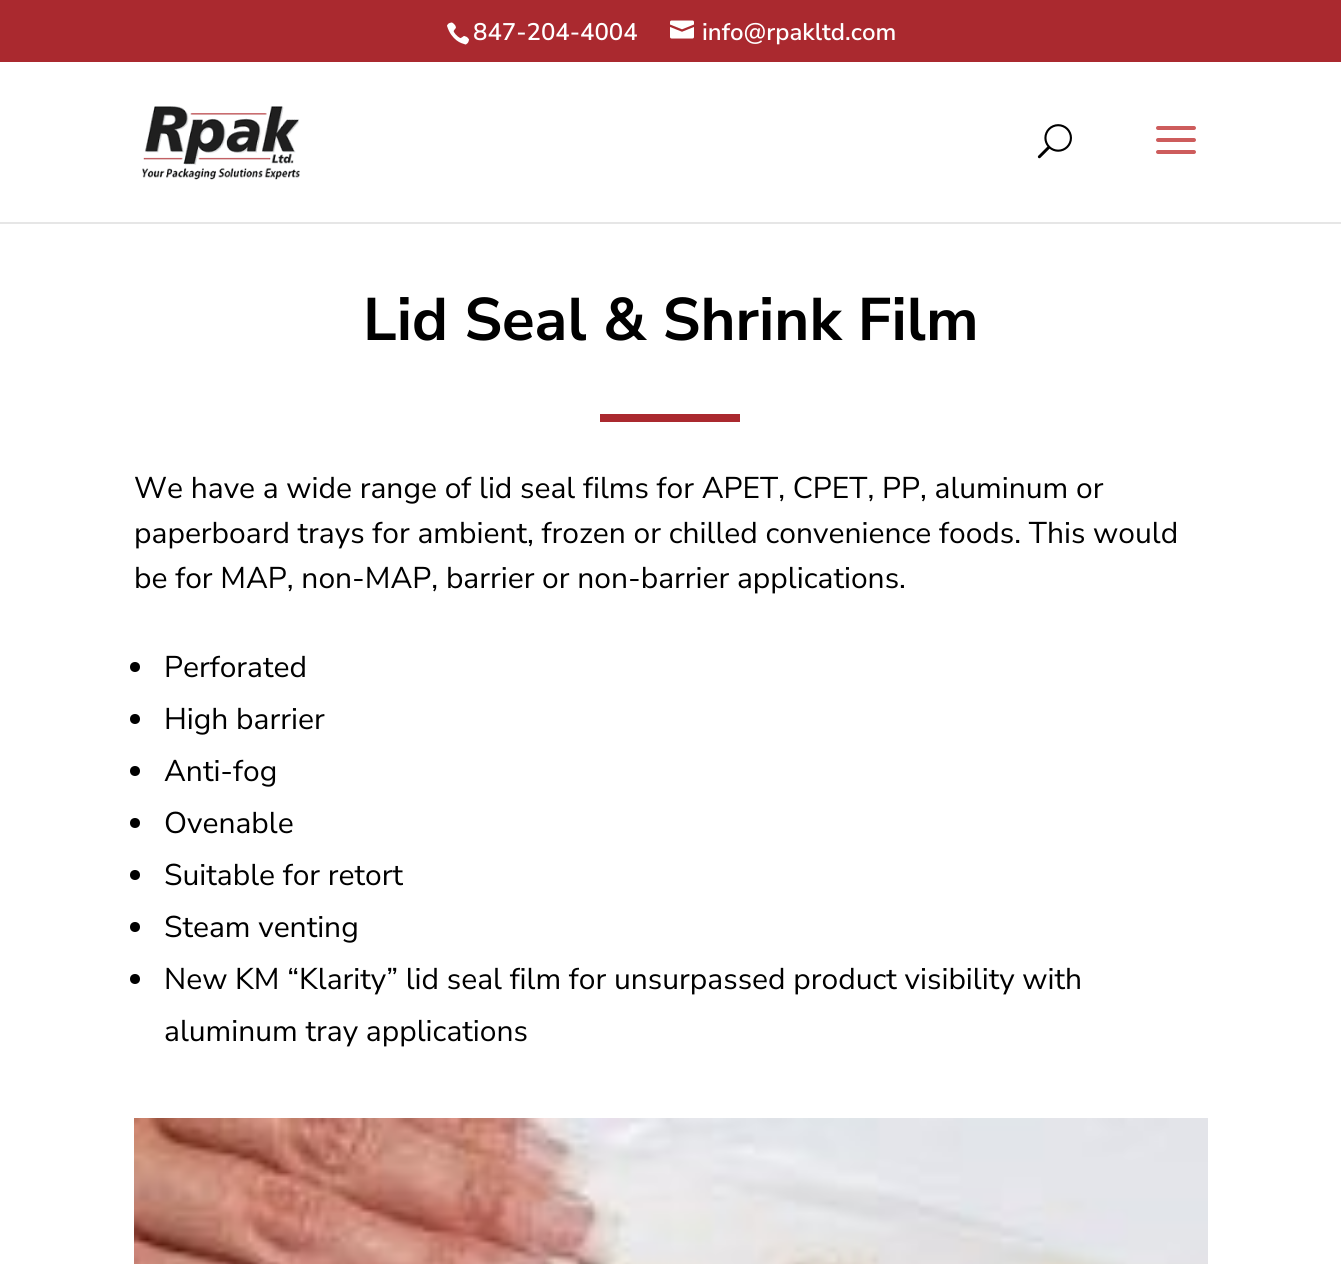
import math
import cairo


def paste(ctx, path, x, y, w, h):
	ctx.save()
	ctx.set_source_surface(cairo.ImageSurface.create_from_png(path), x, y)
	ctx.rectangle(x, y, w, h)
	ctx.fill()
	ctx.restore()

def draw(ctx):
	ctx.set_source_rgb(0.667, 0.161, 0.184)
	ctx.paint()
	paste(ctx, 'media/1.png', 447, 22, 22, 23)
	ctx.select_font_face('Nunito Sans SemiBold')
	ctx.set_font_size(24)
	ctx.set_source_rgb(1, 1, 1)
	ctx.move_to(473, 40)
	ctx.show_text('847-204-4004')
	paste(ctx, 'media/2.png', 670, 20, 24, 19)
	ctx.move_to(702, 40)
	ctx.show_text('info@rpakltd.com')
	ctx.set_source_rgb(0.902, 0.902, 0.902)
	ctx.rectangle(0, 222, 1341, 2)
	ctx.fill()
	ctx.set_source_rgb(1, 1, 1)
	ctx.rectangle(0, 62, 1341, 160)
	ctx.fill()
	paste(ctx, 'media/3.png', 142, 106, 158, 74)
	paste(ctx, 'media/4.png', 1037, 124, 35, 35)
	paste(ctx, 'media/5.png', 1156, 126, 40, 28)
	ctx.rectangle(0, 224, 1341, 1040)
	ctx.fill()
	ctx.select_font_face('Nunito Sans', cairo.FONT_SLANT_NORMAL, cairo.FONT_WEIGHT_BOLD)
	ctx.set_font_size(60)
	ctx.set_source_rgb(0, 0, 0)
	ctx.move_to(363, 340)
	ctx.show_text('Lid Seal & Shrink Film')
	ctx.set_source_rgb(0.667, 0.161, 0.184)
	ctx.rectangle(600, 414, 140, 8)
	ctx.fill()
	ctx.select_font_face('Nunito Sans')
	ctx.set_font_size(30)
	ctx.set_source_rgb(0, 0, 0)
	for x, y, s in [
		(134, 498, 'We have a wide range of lid seal films for APET, CPET, PP, aluminum or'),
		(134, 543, 'paperboard trays for ambient, frozen or chilled convenience foods. This would'),
		(134, 588, 'be for MAP, non-MAP, barrier or non-barrier applications.'),
	]:
		ctx.move_to(x, y)
		ctx.show_text(s)
	ctx.new_path()
	ctx.arc(135, 667, 5, 0, 2 * math.pi)
	ctx.fill()
	ctx.move_to(164, 677)
	ctx.show_text('Perforated')
	ctx.new_path()
	ctx.arc(135, 719, 5, 0, 2 * math.pi)
	ctx.fill()
	ctx.move_to(164, 729)
	ctx.show_text('High barrier')
	ctx.new_path()
	ctx.arc(135, 771, 5, 0, 2 * math.pi)
	ctx.fill()
	ctx.move_to(164, 781)
	ctx.show_text('Anti-fog')
	ctx.new_path()
	ctx.arc(135, 823, 5, 0, 2 * math.pi)
	ctx.fill()
	ctx.move_to(164, 833)
	ctx.show_text('Ovenable')
	ctx.new_path()
	ctx.arc(135, 875, 5, 0, 2 * math.pi)
	ctx.fill()
	ctx.move_to(164, 885)
	ctx.show_text('Suitable for retort')
	ctx.new_path()
	ctx.arc(135, 927, 5, 0, 2 * math.pi)
	ctx.fill()
	ctx.move_to(164, 937)
	ctx.show_text('Steam venting')
	ctx.new_path()
	ctx.arc(135, 979, 5, 0, 2 * math.pi)
	ctx.fill()
	ctx.move_to(164, 989)
	ctx.show_text('New KM “Klarity” lid seal film for unsurpassed product visibility with')
	ctx.move_to(164, 1041)
	ctx.show_text('aluminum tray applications')
	paste(ctx, 'media/6.png', 134, 1118, 1074, 146)


surface = cairo.ImageSurface(cairo.FORMAT_RGB24, 1341, 1264)
ctx = cairo.Context(surface)
options = cairo.FontOptions()
options.set_hint_metrics(cairo.HINT_METRICS_OFF)
options.set_hint_style(cairo.HINT_STYLE_NONE)
ctx.set_font_options(options)
ctx.set_miter_limit(4)
draw(ctx)
surface.write_to_png('image.png')
